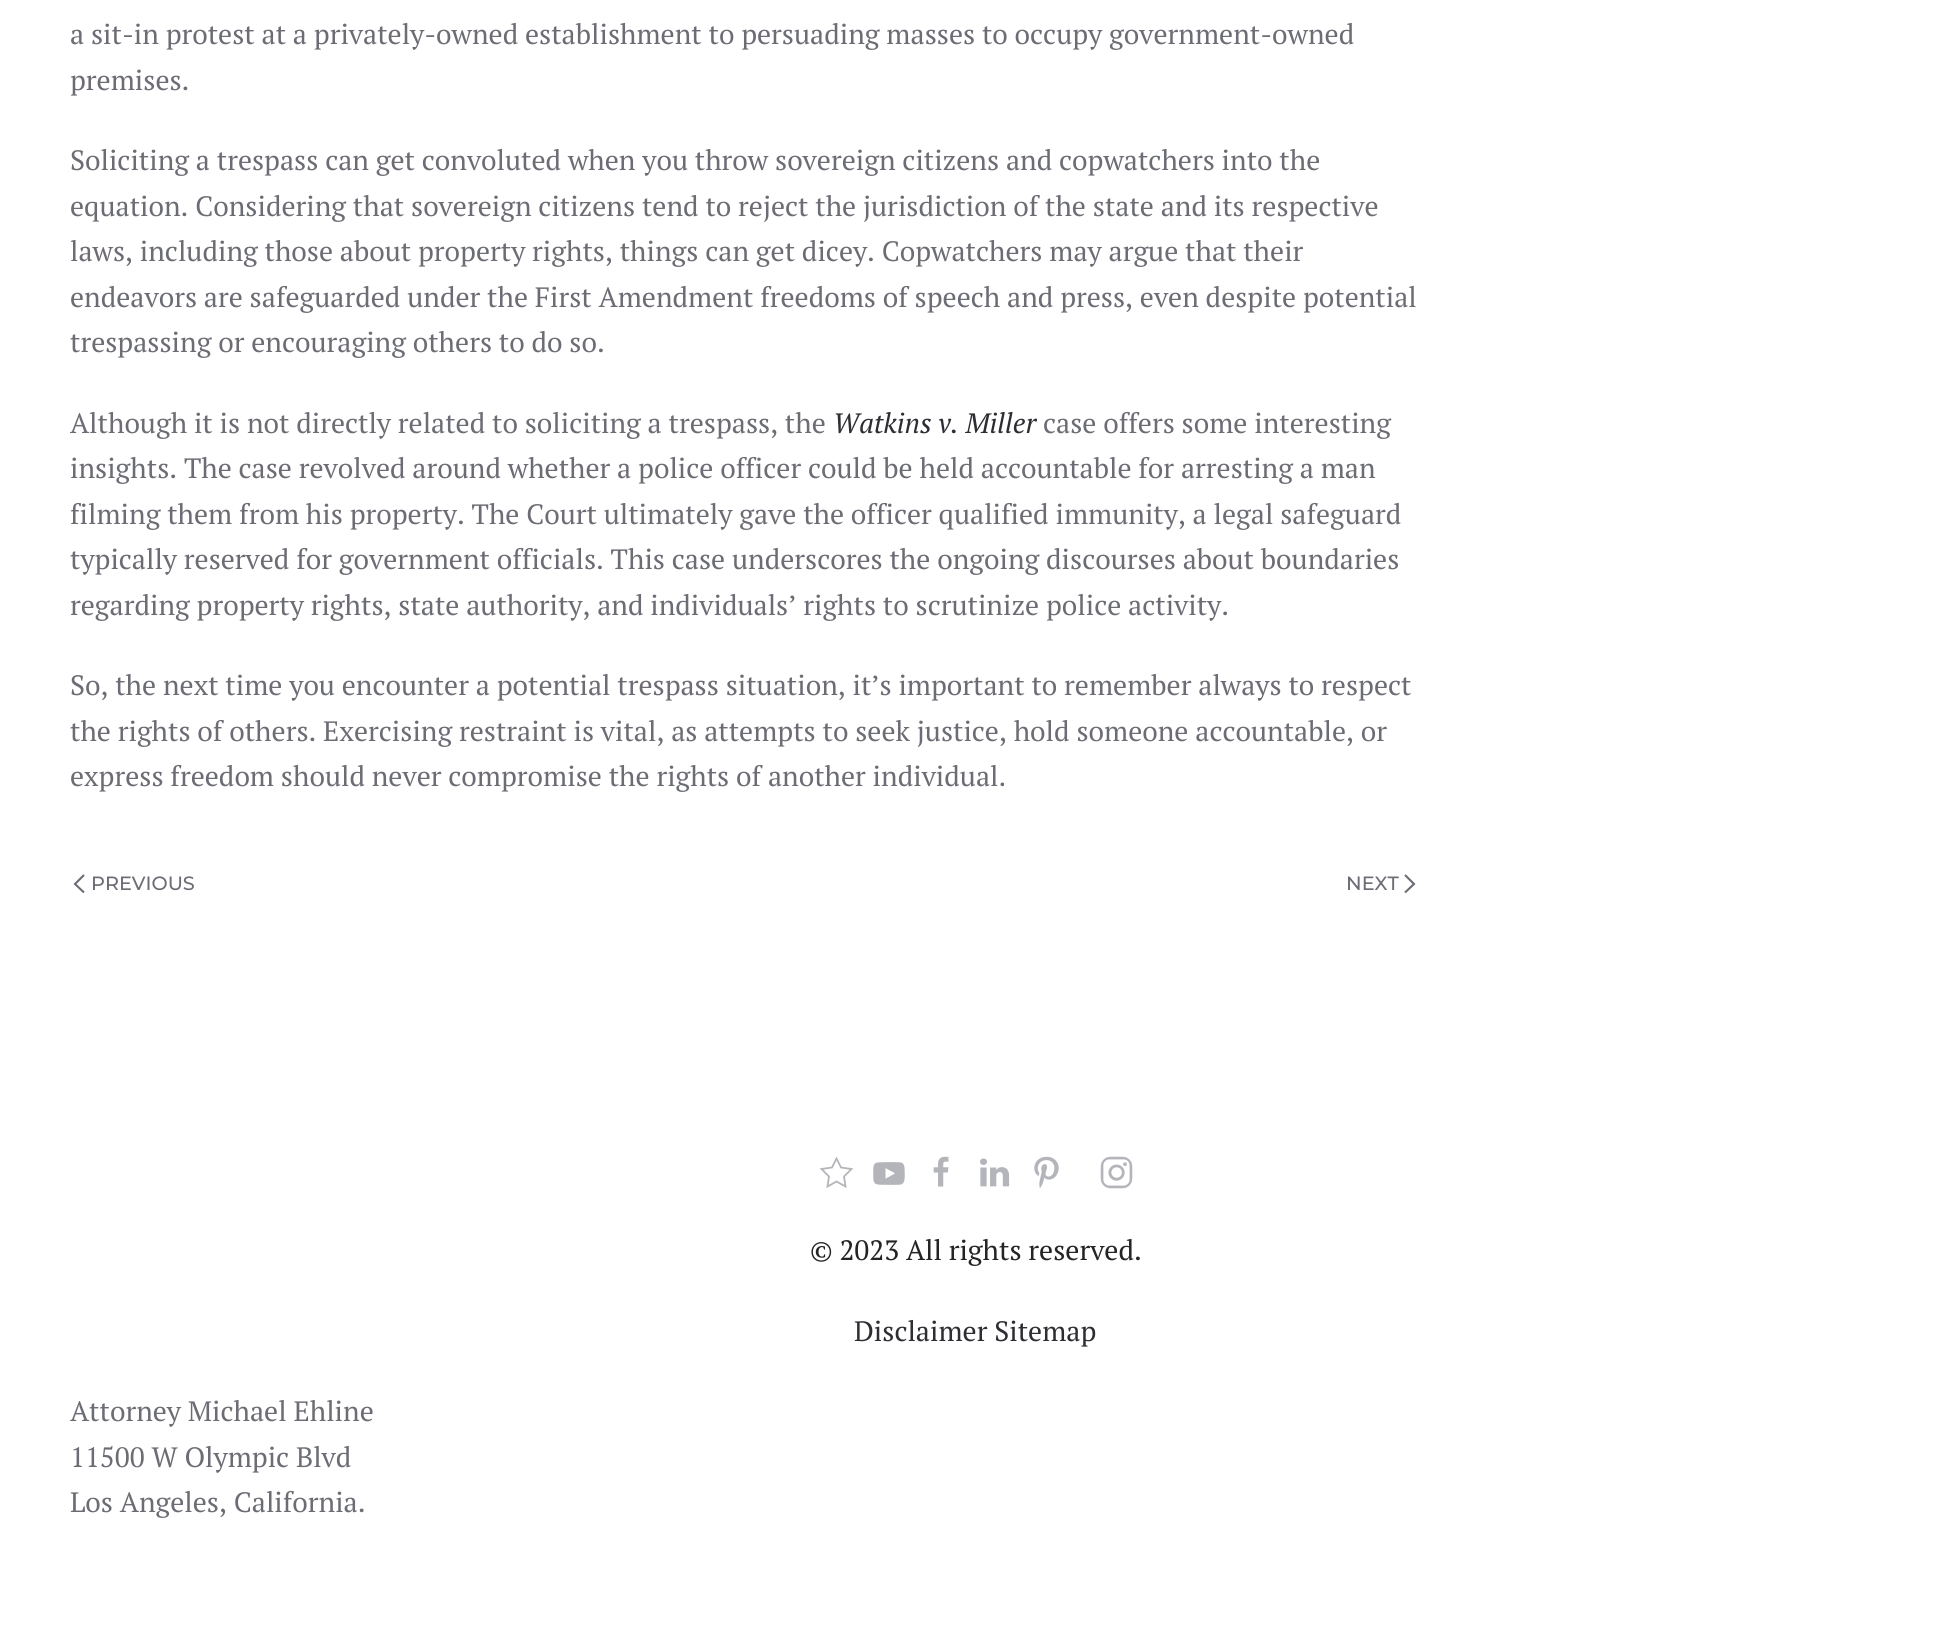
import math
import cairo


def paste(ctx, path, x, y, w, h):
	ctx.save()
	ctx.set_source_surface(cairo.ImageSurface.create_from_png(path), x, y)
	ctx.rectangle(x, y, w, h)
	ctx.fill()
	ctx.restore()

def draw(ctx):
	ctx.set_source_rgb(1, 1, 1)
	ctx.paint()
	ctx.select_font_face('PT Serif')
	ctx.set_font_size(28)
	ctx.set_source_rgb(0.424, 0.427, 0.455)
	for x, y, s in [
		(70, 44, 'a sit-in protest at a privately-owned establishment to persuading masses to occupy government-owned'),
		(70, 90, 'premises.'),
		(70, 170, 'Soliciting a trespass can get convoluted when you throw sovereign citizens and copwatchers into the'),
		(70, 216, 'equation. Considering that sovereign citizens tend to reject the jurisdiction of the state and its respective'),
		(70, 261, 'laws, including those about property rights, things can get dicey. Copwatchers may argue that their'),
		(70, 307, 'endeavors are safeguarded under the First Amendment freedoms of speech and press, even despite potential'),
		(70, 352, 'trespassing or encouraging others to do so.'),
		(70, 433, 'Although it is not directly related to soliciting a trespass, the'),
	]:
		ctx.move_to(x, y)
		ctx.show_text(s)
	ctx.select_font_face('PT Serif', cairo.FONT_SLANT_ITALIC)
	ctx.set_source_rgb(0.176, 0.18, 0.2)
	ctx.move_to(833, 433)
	ctx.show_text('Watkins v. Miller')
	ctx.select_font_face('PT Serif')
	ctx.set_source_rgb(0.424, 0.427, 0.455)
	for x, y, s in [
		(1043, 433, 'case offers some interesting'),
		(70, 478, 'insights. The case revolved around whether a police officer could be held accountable for arresting a man'),
		(70, 524, 'filming them from his property. The Court ultimately gave the officer qualified immunity, a legal safeguard'),
		(70, 569, 'typically reserved for government officials. This case underscores the ongoing discourses about boundaries'),
		(70, 615, 'regarding property rights, state authority, and individuals’ rights to scrutinize police activity.'),
		(70, 695, 'So, the next time you encounter a potential trespass situation, it’s important to remember always to respect'),
		(70, 741, 'the rights of others. Exercising restraint is vital, as attempts to seek justice, hold someone accountable, or'),
		(70, 786, 'express freedom should never compromise the rights of another individual.'),
	]:
		ctx.move_to(x, y)
		ctx.show_text(s)
	ctx.new_path()
	ctx.move_to(84, 875)
	ctx.line_to(75, 884)
	ctx.line_to(84, 892.5)
	ctx.set_line_width(2.1)
	ctx.stroke()
	ctx.select_font_face('Montserrat Thin')
	ctx.set_font_size(19.25)
	ctx.move_to(91, 890)
	ctx.show_text('PREVIOUS')
	ctx.move_to(1346, 890)
	ctx.show_text('NEXT')
	ctx.new_path()
	ctx.move_to(1405, 875)
	ctx.line_to(1414, 884)
	ctx.line_to(1405, 892.5)
	ctx.stroke()
	ctx.new_path()
	ctx.move_to(836.5, 1158.5)
	ctx.line_to(841, 1167.5)
	ctx.line_to(851.5, 1169)
	ctx.line_to(844, 1176.5)
	ctx.line_to(845.5, 1186.5)
	ctx.line_to(836.5, 1181.5)
	ctx.line_to(827.5, 1186.5)
	ctx.line_to(829, 1176.5)
	ctx.line_to(821.5, 1169)
	ctx.line_to(832, 1167.5)
	ctx.close_path()
	ctx.set_source_rgb(0.706, 0.71, 0.729)
	ctx.set_line_width(1.8)
	ctx.stroke()
	paste(ctx, 'media/1.png', 873, 1162, 32, 23)
	paste(ctx, 'media/2.png', 933, 1156, 16, 31)
	paste(ctx, 'media/3.png', 980, 1158, 30, 29)
	paste(ctx, 'media/4.png', 1034, 1156, 25, 33)
	paste(ctx, 'media/5.png', 1100, 1156, 33, 33)
	ctx.select_font_face('PT Serif')
	ctx.set_font_size(28)
	ctx.set_source_rgb(0.141, 0.141, 0.153)
	ctx.move_to(810, 1260)
	ctx.show_text('© 2023 All rights reserved.')
	ctx.set_source_rgb(0.176, 0.18, 0.2)
	ctx.move_to(854, 1341)
	ctx.show_text('Disclaimer Sitemap')
	ctx.set_source_rgb(0.424, 0.427, 0.455)
	for x, y, s in [
		(70, 1421, 'Attorney Michael Ehline'),
		(70, 1467, '11500 W Olympic Blvd'),
		(70, 1512, 'Los Angeles, California.'),
	]:
		ctx.move_to(x, y)
		ctx.show_text(s)


surface = cairo.ImageSurface(cairo.FORMAT_RGB24, 1951, 1646)
ctx = cairo.Context(surface)
options = cairo.FontOptions()
options.set_hint_metrics(cairo.HINT_METRICS_OFF)
options.set_hint_style(cairo.HINT_STYLE_NONE)
ctx.set_font_options(options)
ctx.set_miter_limit(4)
draw(ctx)
surface.write_to_png('image.png')
